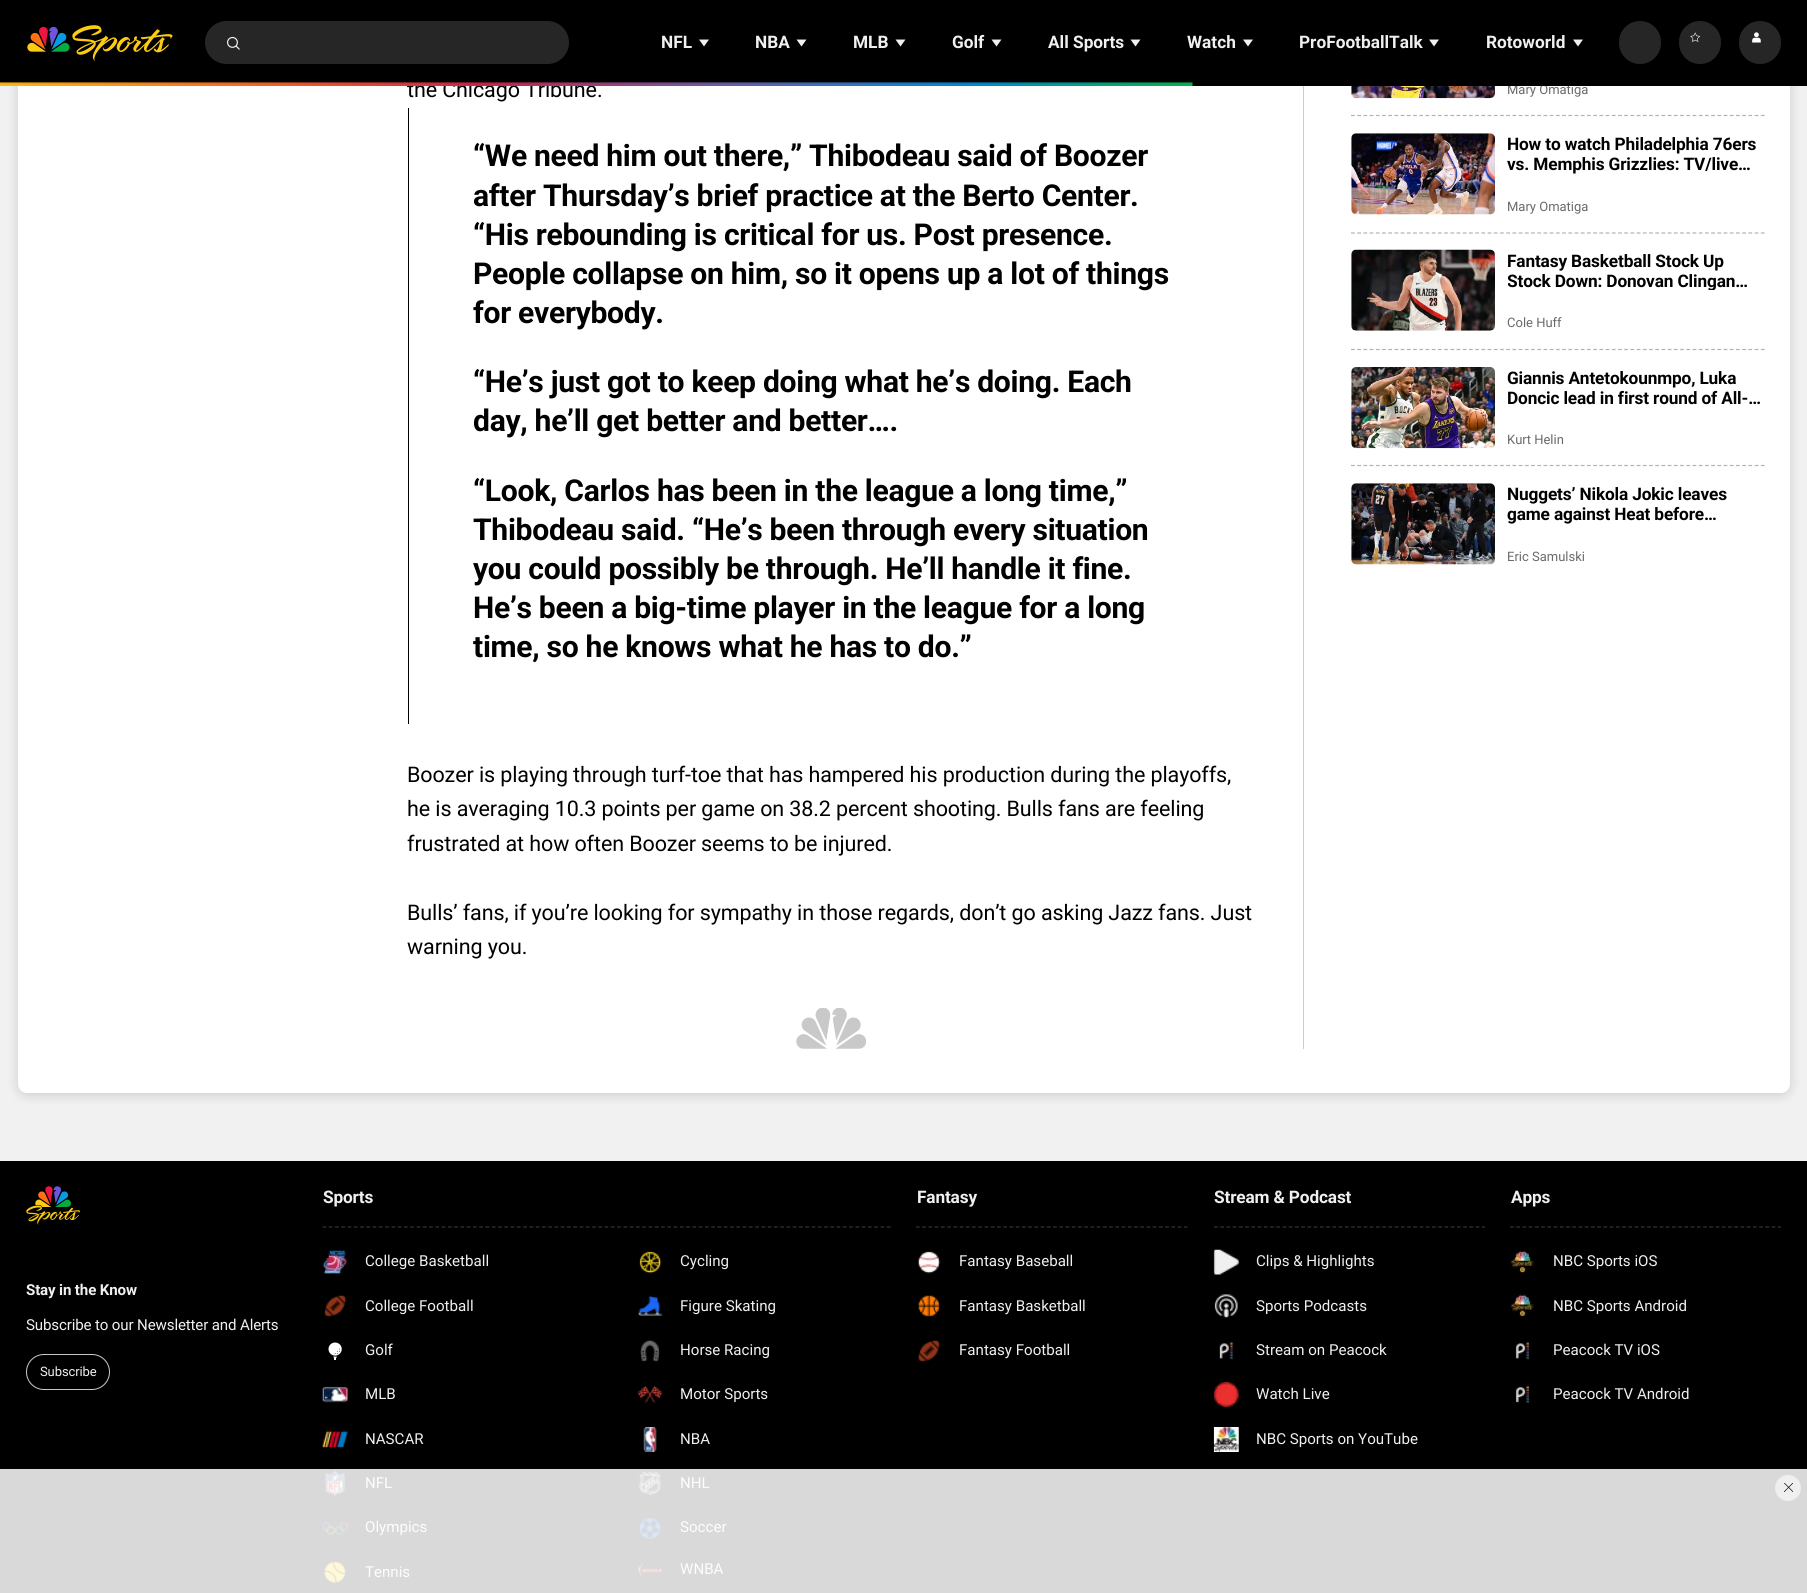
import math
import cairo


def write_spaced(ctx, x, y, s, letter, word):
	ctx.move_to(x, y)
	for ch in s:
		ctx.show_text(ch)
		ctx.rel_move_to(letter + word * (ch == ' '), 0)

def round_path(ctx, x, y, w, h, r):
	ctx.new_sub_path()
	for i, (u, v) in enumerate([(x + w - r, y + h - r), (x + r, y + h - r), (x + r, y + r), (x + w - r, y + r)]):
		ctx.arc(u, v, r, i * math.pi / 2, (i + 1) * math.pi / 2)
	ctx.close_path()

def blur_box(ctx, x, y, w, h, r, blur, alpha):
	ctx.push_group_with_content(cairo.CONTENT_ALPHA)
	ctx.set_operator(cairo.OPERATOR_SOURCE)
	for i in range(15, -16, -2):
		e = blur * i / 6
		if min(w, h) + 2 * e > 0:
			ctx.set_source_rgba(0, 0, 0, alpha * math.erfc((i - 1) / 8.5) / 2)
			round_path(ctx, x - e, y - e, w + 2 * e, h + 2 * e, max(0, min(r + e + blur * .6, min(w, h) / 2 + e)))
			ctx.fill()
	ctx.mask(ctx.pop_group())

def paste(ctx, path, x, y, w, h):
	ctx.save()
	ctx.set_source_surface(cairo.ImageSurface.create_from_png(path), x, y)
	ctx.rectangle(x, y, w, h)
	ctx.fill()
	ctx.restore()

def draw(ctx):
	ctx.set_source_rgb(0.945, 0.945, 0.945)
	ctx.paint()
	ctx.set_source_rgb(0, 0, 0)
	blur_box(ctx, 18, -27, 1772, 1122, 9, 6, 0.15)
	ctx.set_source_rgb(1, 1, 1)
	round_path(ctx, 18, -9, 1772, 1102, 9)
	ctx.fill()
	ctx.select_font_face('Roboto')
	ctx.set_font_size(13)
	ctx.set_source_rgb(0.416, 0.416, 0.416)
	ctx.move_to(1507, 94)
	ctx.show_text('Mary Omatiga')
	ctx.set_source_rgb(0, 0, 0)
	ctx.rectangle(0, 0, 1807, 86)
	ctx.fill()
	paste(ctx, 'media/1.png', 27, 25, 146, 36)
	ctx.set_source_rgb(0.149, 0.149, 0.149)
	round_path(ctx, 205, 21, 364, 43, 21.5)
	ctx.fill()
	paste(ctx, 'media/2.png', 227, 36, 13, 14)
	ctx.select_font_face('Roboto', cairo.FONT_SLANT_NORMAL, cairo.FONT_WEIGHT_BOLD)
	ctx.set_font_size(17.25)
	ctx.set_source_rgb(0.941, 0.941, 0.941)
	ctx.move_to(661, 48)
	ctx.show_text('NFL')
	ctx.new_path()
	ctx.move_to(704, 46.5)
	ctx.line_to(699, 39.5)
	ctx.line_to(709, 39.5)
	ctx.close_path()
	ctx.fill()
	ctx.move_to(755, 48)
	ctx.show_text('NBA')
	ctx.new_path()
	ctx.move_to(801.5, 46.5)
	ctx.line_to(796.5, 39.5)
	ctx.line_to(806.5, 39.5)
	ctx.close_path()
	ctx.fill()
	ctx.move_to(853, 48)
	ctx.show_text('MLB')
	ctx.new_path()
	ctx.move_to(900.5, 46.5)
	ctx.line_to(895.5, 39.5)
	ctx.line_to(905.5, 39.5)
	ctx.close_path()
	ctx.fill()
	ctx.move_to(952, 48)
	ctx.show_text('Golf')
	ctx.new_path()
	ctx.move_to(996.5, 46.5)
	ctx.line_to(991.5, 39.5)
	ctx.line_to(1001.5, 39.5)
	ctx.close_path()
	ctx.fill()
	ctx.move_to(1048, 48)
	ctx.show_text('All Sports')
	ctx.new_path()
	ctx.move_to(1135.5, 46.5)
	ctx.line_to(1130.5, 39.5)
	ctx.line_to(1140.5, 39.5)
	ctx.close_path()
	ctx.fill()
	ctx.move_to(1187, 48)
	ctx.show_text('Watch')
	ctx.new_path()
	ctx.move_to(1248, 46.5)
	ctx.line_to(1243, 39.5)
	ctx.line_to(1253, 39.5)
	ctx.close_path()
	ctx.fill()
	ctx.move_to(1299, 48)
	ctx.show_text('ProFootballTalk')
	ctx.new_path()
	ctx.move_to(1434, 46.5)
	ctx.line_to(1429, 39.5)
	ctx.line_to(1439, 39.5)
	ctx.close_path()
	ctx.fill()
	ctx.move_to(1486, 48)
	ctx.show_text('Rotoworld')
	ctx.new_path()
	ctx.move_to(1578, 46.5)
	ctx.line_to(1573, 39.5)
	ctx.line_to(1583, 39.5)
	ctx.close_path()
	ctx.fill()
	ctx.set_source_rgb(0.149, 0.149, 0.149)
	round_path(ctx, 1619, 21, 42, 43, 21)
	ctx.fill()
	round_path(ctx, 1679, 21, 42, 43, 21)
	ctx.fill()
	paste(ctx, 'media/3.png', 1690, 32, 11, 10)
	round_path(ctx, 1739, 21, 42, 43, 21)
	ctx.fill()
	paste(ctx, 'media/4.png', 1752, 32, 9, 11)
	ctx.select_font_face('Roboto')
	ctx.set_font_size(21.5)
	ctx.set_source_rgb(0, 0, 0)
	write_spaced(ctx, 407, 97, 'the Chicago Tribune.', -0.1, 0)
	paste(ctx, 'media/5.png', 0, 82, 1193, 4)
	ctx.rectangle(408, 108, 1, 616)
	ctx.fill()
	ctx.select_font_face('Roboto', cairo.FONT_SLANT_NORMAL, cairo.FONT_WEIGHT_BOLD)
	ctx.set_font_size(30.1)
	for x, y, s in [
		(473, 166, '“We need him out there,” Thibodeau said of Boozer'),
		(473, 206, 'after Thursday’s brief practice at the Berto Center.'),
		(473, 245, '“His rebounding is critical for us. Post presence.'),
		(473, 284, 'People collapse on him, so it opens up a lot of things'),
		(473, 323, 'for everybody.'),
		(473, 392, '“He’s just got to keep doing what he’s doing. Each'),
		(473, 431, 'day, he’ll get better and better….'),
		(473, 501, '“Look, Carlos has been in the league a long time,”'),
		(473, 540, 'Thibodeau said. “He’s been through every situation'),
		(473, 579, 'you could possibly be through. He’ll handle it fine.'),
		(473, 618, 'He’s been a big-time player in the league for a long'),
		(473, 657, 'time, so he knows what he has to do.”'),
	]:
		write_spaced(ctx, x, y, s, -0.3, 0)
	ctx.select_font_face('Roboto')
	ctx.set_font_size(21.5)
	for x, y, s in [
		(407, 782, 'Boozer is playing through turf-toe that has hampered his production during the playoffs,'),
		(407, 816, 'he is averaging 10.3 points per game on 38.2 percent shooting. Bulls fans are feeling'),
		(407, 851, 'frustrated at how often Boozer seems to be injured.'),
		(407, 920, 'Bulls’ fans, if you’re looking for sympathy in those regards, don’t go asking Jazz fans. Just'),
		(407, 954, 'warning you.'),
	]:
		write_spaced(ctx, x, y, s, -0.1, 0)
	paste(ctx, 'media/6.png', 796, 1008, 70, 41)
	ctx.set_source_rgb(0.8, 0.8, 0.8)
	ctx.rectangle(1303, 86, 1, 963)
	ctx.fill()
	paste(ctx, 'media/7.png', 1351, 86, 144, 13)
	ctx.new_path()
	ctx.move_to(1351, 115.5)
	ctx.line_to(1765, 115.5)
	ctx.set_source_rgb(0.702, 0.702, 0.702)
	ctx.set_line_width(1.2)
	ctx.set_dash([3.75, 2.46])
	ctx.stroke()
	paste(ctx, 'media/8.png', 1351, 133, 144, 82)
	ctx.select_font_face('Roboto', cairo.FONT_SLANT_NORMAL, cairo.FONT_WEIGHT_BOLD)
	ctx.set_font_size(17.25)
	ctx.set_source_rgb(0, 0, 0)
	write_spaced(ctx, 1507, 150, 'How to watch Philadelphia 76ers', -0.15, 0)
	write_spaced(ctx, 1507, 170, 'vs. Memphis Grizzlies: TV/live…', -0.15, 0)
	ctx.select_font_face('Roboto')
	ctx.set_font_size(13)
	ctx.set_source_rgb(0.416, 0.416, 0.416)
	ctx.move_to(1507, 211)
	ctx.show_text('Mary Omatiga')
	ctx.new_path()
	ctx.move_to(1351, 233)
	ctx.line_to(1765, 233)
	ctx.set_source_rgb(0.702, 0.702, 0.702)
	ctx.stroke()
	paste(ctx, 'media/9.png', 1351, 249, 144, 82)
	ctx.select_font_face('Roboto', cairo.FONT_SLANT_NORMAL, cairo.FONT_WEIGHT_BOLD)
	ctx.set_font_size(17.25)
	ctx.set_source_rgb(0, 0, 0)
	write_spaced(ctx, 1507, 267, 'Fantasy Basketball Stock Up', -0.15, 0)
	ctx.save()
	ctx.rectangle(1508, 250, 257, 40)
	ctx.clip()
	write_spaced(ctx, 1507, 287, 'Stock Down: Donovan Clingan…', -0.15, 0)
	ctx.restore()
	ctx.select_font_face('Roboto')
	ctx.set_font_size(13)
	ctx.set_source_rgb(0.416, 0.416, 0.416)
	ctx.move_to(1507, 327)
	ctx.show_text('Cole Huff')
	ctx.new_path()
	ctx.move_to(1351, 349.5)
	ctx.line_to(1765, 349.5)
	ctx.set_source_rgb(0.702, 0.702, 0.702)
	ctx.stroke()
	paste(ctx, 'media/10.png', 1351, 367, 144, 82)
	ctx.select_font_face('Roboto', cairo.FONT_SLANT_NORMAL, cairo.FONT_WEIGHT_BOLD)
	ctx.set_font_size(17.25)
	ctx.set_source_rgb(0, 0, 0)
	write_spaced(ctx, 1507, 384, 'Giannis Antetokounmpo, Luka', -0.15, 0)
	write_spaced(ctx, 1507, 404, 'Doncic lead in first round of All-…', -0.15, 0)
	ctx.select_font_face('Roboto')
	ctx.set_font_size(13)
	ctx.set_source_rgb(0.416, 0.416, 0.416)
	ctx.move_to(1507, 444)
	ctx.show_text('Kurt Helin')
	ctx.new_path()
	ctx.move_to(1351, 465.5)
	ctx.line_to(1765, 465.5)
	ctx.set_source_rgb(0.702, 0.702, 0.702)
	ctx.stroke()
	paste(ctx, 'media/11.png', 1351, 483, 144, 82)
	ctx.select_font_face('Roboto', cairo.FONT_SLANT_NORMAL, cairo.FONT_WEIGHT_BOLD)
	ctx.set_font_size(17.25)
	ctx.set_source_rgb(0, 0, 0)
	write_spaced(ctx, 1507, 500, 'Nuggets’ Nikola Jokic leaves', -0.15, 0)
	write_spaced(ctx, 1507, 520, 'game against Heat before…', -0.15, 0)
	ctx.select_font_face('Roboto')
	ctx.set_font_size(13)
	ctx.set_source_rgb(0.416, 0.416, 0.416)
	ctx.move_to(1507, 561)
	ctx.show_text('Eric Samulski')
	ctx.set_source_rgb(0, 0, 0)
	ctx.rectangle(0, 1161, 1807, 308)
	ctx.fill()
	ctx.set_source_rgb(0.851, 0.851, 0.851)
	ctx.rectangle(0, 1469, 1807, 124)
	ctx.fill()
	paste(ctx, 'media/12.png', 26, 1186, 54, 39)
	ctx.select_font_face('Roboto', cairo.FONT_SLANT_NORMAL, cairo.FONT_WEIGHT_BOLD)
	ctx.set_font_size(15.1)
	ctx.set_source_rgb(0.941, 0.941, 0.941)
	write_spaced(ctx, 26, 1295, 'Stay in the Know', -0.15, 0)
	ctx.select_font_face('Roboto')
	write_spaced(ctx, 26, 1330, 'Subscribe to our Newsletter and Alerts', -0.15, 0)
	round_path(ctx, 26.5, 1354.5, 83, 35, 17.5)
	ctx.set_source_rgb(0.788, 0.788, 0.788)
	ctx.set_line_width(1)
	ctx.set_dash([])
	ctx.stroke()
	ctx.set_font_size(13)
	ctx.set_source_rgb(0.941, 0.941, 0.941)
	write_spaced(ctx, 40, 1376, 'Subscribe', -0.1, 0)
	ctx.new_path()
	ctx.move_to(322.5, 1227)
	ctx.line_to(891, 1227)
	ctx.set_source_rgb(0.2, 0.2, 0.2)
	ctx.set_line_width(1.2)
	ctx.set_dash([3.75, 2.52])
	ctx.stroke()
	ctx.select_font_face('Roboto', cairo.FONT_SLANT_NORMAL, cairo.FONT_WEIGHT_BOLD)
	ctx.set_font_size(17.25)
	ctx.set_source_rgb(0.941, 0.941, 0.941)
	write_spaced(ctx, 323, 1203, 'Sports', -0.15, 0)
	paste(ctx, 'media/13.png', 323, 1250, 25, 24)
	ctx.select_font_face('Roboto')
	ctx.set_font_size(15.1)
	ctx.move_to(365, 1266)
	ctx.show_text('College Basketball')
	paste(ctx, 'media/14.png', 639, 1251, 23, 23)
	ctx.move_to(680, 1266)
	ctx.show_text('Cycling')
	paste(ctx, 'media/15.png', 324, 1295, 23, 22)
	ctx.move_to(365, 1311)
	ctx.show_text('College Football')
	paste(ctx, 'media/16.png', 637, 1295, 26, 21)
	ctx.move_to(680, 1311)
	ctx.show_text('Figure Skating')
	paste(ctx, 'media/17.png', 328, 1342, 14, 18)
	ctx.move_to(365, 1355)
	ctx.show_text('Golf')
	paste(ctx, 'media/18.png', 640, 1340, 20, 22)
	ctx.move_to(680, 1355)
	ctx.show_text('Horse Racing')
	paste(ctx, 'media/19.png', 322, 1386, 26, 17)
	ctx.move_to(365, 1399)
	ctx.show_text('MLB')
	paste(ctx, 'media/20.png', 637, 1385, 26, 19)
	ctx.move_to(680, 1399)
	ctx.show_text('Motor Sports')
	paste(ctx, 'media/21.png', 322, 1430, 26, 19)
	ctx.move_to(365, 1444)
	ctx.show_text('NASCAR')
	paste(ctx, 'media/22.png', 643, 1427, 14, 25)
	ctx.move_to(680, 1444)
	ctx.show_text('NBA')
	paste(ctx, 'media/23.png', 325, 1470, 21, 26)
	ctx.set_source_rgb(0.992, 0.992, 0.992)
	ctx.move_to(365, 1488)
	ctx.show_text('NFL')
	paste(ctx, 'media/24.png', 638, 1470, 24, 26)
	ctx.move_to(680, 1488)
	ctx.show_text('NHL')
	paste(ctx, 'media/25.png', 322, 1521, 26, 14)
	ctx.move_to(365, 1532)
	ctx.show_text('Olympics')
	paste(ctx, 'media/26.png', 638, 1518, 23, 22)
	ctx.move_to(680, 1532)
	ctx.show_text('Soccer')
	paste(ctx, 'media/27.png', 323, 1561, 23, 23)
	ctx.move_to(365, 1577)
	ctx.show_text('Tennis')
	paste(ctx, 'media/28.png', 638, 1564, 25, 12)
	ctx.move_to(680, 1574)
	ctx.show_text('WNBA')
	ctx.new_path()
	ctx.move_to(916, 1227)
	ctx.line_to(1187.5, 1227)
	ctx.set_source_rgb(0.2, 0.2, 0.2)
	ctx.set_dash([3.75, 2.48])
	ctx.stroke()
	ctx.select_font_face('Roboto', cairo.FONT_SLANT_NORMAL, cairo.FONT_WEIGHT_BOLD)
	ctx.set_font_size(17.25)
	ctx.set_source_rgb(0.941, 0.941, 0.941)
	write_spaced(ctx, 917, 1203, 'Fantasy', -0.15, 0)
	paste(ctx, 'media/29.png', 918, 1251, 23, 23)
	ctx.select_font_face('Roboto')
	ctx.set_font_size(15.1)
	ctx.move_to(959, 1266)
	ctx.show_text('Fantasy Baseball')
	paste(ctx, 'media/30.png', 918, 1295, 22, 22)
	ctx.move_to(959, 1311)
	ctx.show_text('Fantasy Basketball')
	paste(ctx, 'media/31.png', 918, 1340, 23, 22)
	ctx.move_to(959, 1355)
	ctx.show_text('Fantasy Football')
	ctx.new_path()
	ctx.move_to(1214, 1227)
	ctx.line_to(1485, 1227)
	ctx.set_source_rgb(0.2, 0.2, 0.2)
	ctx.stroke()
	ctx.select_font_face('Roboto', cairo.FONT_SLANT_NORMAL, cairo.FONT_WEIGHT_BOLD)
	ctx.set_font_size(17.25)
	ctx.set_source_rgb(0.941, 0.941, 0.941)
	write_spaced(ctx, 1214, 1203, 'Stream & Podcast', -0.15, 0)
	paste(ctx, 'media/32.png', 1213, 1249, 26, 26)
	ctx.select_font_face('Roboto')
	ctx.set_font_size(15.1)
	ctx.move_to(1256, 1266)
	ctx.show_text('Clips & Highlights')
	paste(ctx, 'media/33.png', 1214, 1294, 24, 24)
	ctx.move_to(1256, 1311)
	ctx.show_text('Sports Podcasts')
	paste(ctx, 'media/34.png', 1219, 1341, 16, 19)
	ctx.move_to(1256, 1355)
	ctx.show_text('Stream on Peacock')
	paste(ctx, 'media/35.png', 1213, 1382, 26, 25)
	ctx.move_to(1256, 1399)
	ctx.show_text('Watch Live')
	paste(ctx, 'media/36.png', 1213, 1427, 26, 25)
	ctx.move_to(1256, 1444)
	ctx.show_text('NBC Sports on YouTube')
	ctx.new_path()
	ctx.move_to(1510, 1227)
	ctx.line_to(1781, 1227)
	ctx.set_source_rgb(0.2, 0.2, 0.2)
	ctx.stroke()
	ctx.select_font_face('Roboto', cairo.FONT_SLANT_NORMAL, cairo.FONT_WEIGHT_BOLD)
	ctx.set_font_size(17.25)
	ctx.set_source_rgb(0.941, 0.941, 0.941)
	write_spaced(ctx, 1511, 1203, 'Apps', -0.15, 0)
	paste(ctx, 'media/37.png', 1510, 1250, 25, 23)
	ctx.select_font_face('Roboto')
	ctx.set_font_size(15.1)
	ctx.move_to(1553, 1266)
	ctx.show_text('NBC Sports iOS')
	paste(ctx, 'media/38.png', 1510, 1293, 25, 24)
	ctx.move_to(1553, 1311)
	ctx.show_text('NBC Sports Android')
	paste(ctx, 'media/39.png', 1515, 1341, 16, 19)
	ctx.move_to(1553, 1355)
	ctx.show_text('Peacock TV iOS')
	paste(ctx, 'media/40.png', 1515, 1382, 16, 22)
	ctx.move_to(1553, 1399)
	ctx.show_text('Peacock TV Android')
	ctx.set_source_rgb(0.937, 0.937, 0.937)
	ctx.new_path()
	ctx.arc(1788, 1488, 13, 0, 2 * math.pi)
	ctx.fill()
	paste(ctx, 'media/41.png', 1784, 1483, 9, 9)


surface = cairo.ImageSurface(cairo.FORMAT_RGB24, 1807, 1593)
ctx = cairo.Context(surface)
options = cairo.FontOptions()
options.set_hint_metrics(cairo.HINT_METRICS_OFF)
options.set_hint_style(cairo.HINT_STYLE_NONE)
ctx.set_font_options(options)
ctx.set_miter_limit(4)
draw(ctx)
surface.write_to_png('image.png')
